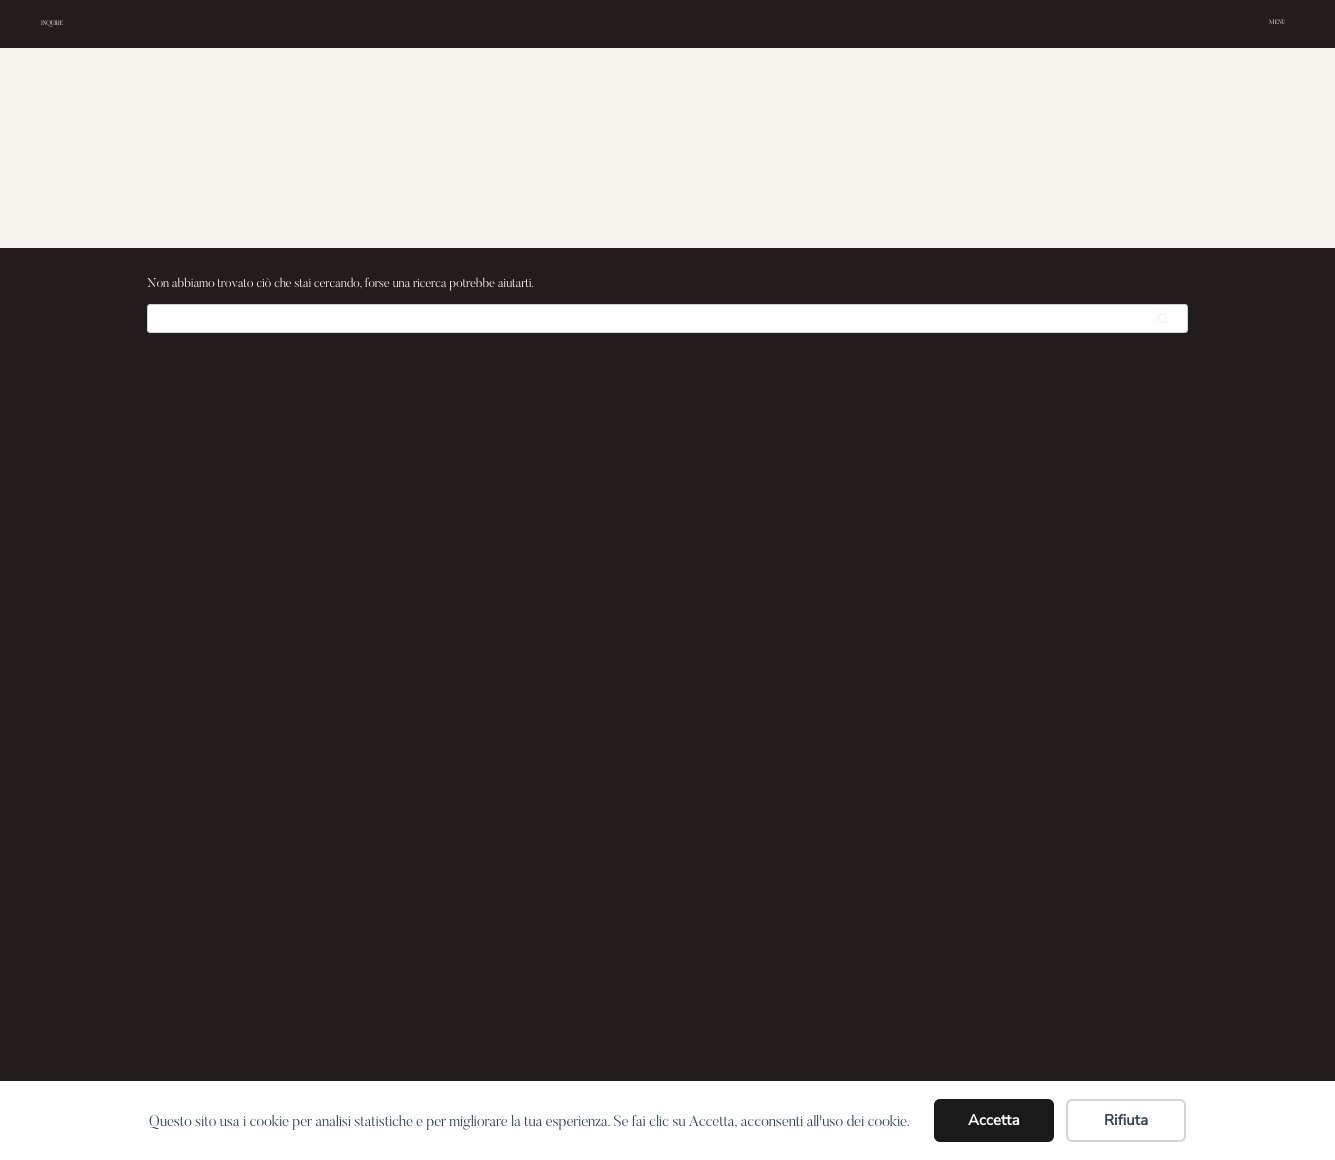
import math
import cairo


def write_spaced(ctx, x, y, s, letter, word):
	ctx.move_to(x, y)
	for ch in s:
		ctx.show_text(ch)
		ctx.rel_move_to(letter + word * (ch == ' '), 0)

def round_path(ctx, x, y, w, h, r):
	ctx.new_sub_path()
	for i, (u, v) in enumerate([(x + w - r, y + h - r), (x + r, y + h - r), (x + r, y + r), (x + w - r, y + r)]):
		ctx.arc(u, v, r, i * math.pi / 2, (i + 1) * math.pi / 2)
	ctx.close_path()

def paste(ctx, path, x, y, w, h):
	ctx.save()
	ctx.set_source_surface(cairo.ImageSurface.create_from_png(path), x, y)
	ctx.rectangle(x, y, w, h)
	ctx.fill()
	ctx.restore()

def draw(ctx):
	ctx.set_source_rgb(0.137, 0.11, 0.11)
	ctx.paint()
	paste(ctx, 'media/1.png', 41, 20, 22, 7)
	paste(ctx, 'media/2.png', 1269, 19, 17, 5)
	ctx.set_source_rgb(0.965, 0.957, 0.941)
	ctx.rectangle(0, 48, 1335, 200)
	ctx.fill()
	ctx.select_font_face('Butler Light')
	ctx.set_font_size(12.7)
	write_spaced(ctx, 147, 287, 'Non abbiamo trovato ciò che stai cercando, forse una ricerca potrebbe aiutarti.', -0.25, 0)
	ctx.set_source_rgb(1, 1, 1)
	round_path(ctx, 147.5, 304.5, 1040, 28, 2.5)
	ctx.fill_preserve()
	ctx.set_source_rgb(0.796, 0.835, 0.878)
	ctx.set_line_width(1)
	ctx.stroke()
	paste(ctx, 'media/3.png', 1157, 313, 12, 12)
	ctx.set_source_rgb(1, 1, 1)
	ctx.rectangle(0, 1081, 1335, 79)
	ctx.fill()
	ctx.set_font_size(15)
	ctx.set_source_rgb(0.173, 0.243, 0.314)
	write_spaced(ctx, 149, 1126, 'Questo sito usa i cookie per analisi statistiche e per migliorare la tua esperienza. Se fai clic su Accetta, acconsenti all\'uso dei cookie.', -0.25, 0)
	ctx.set_source_rgb(0.102, 0.102, 0.102)
	round_path(ctx, 934, 1099, 120, 43, 6)
	ctx.fill()
	ctx.select_font_face('Nunito Sans', cairo.FONT_SLANT_NORMAL, cairo.FONT_WEIGHT_BOLD)
	ctx.set_source_rgb(1, 1, 1)
	ctx.move_to(968, 1125)
	ctx.show_text('Accetta')
	round_path(ctx, 1067, 1100, 118, 41, 5)
	ctx.set_source_rgb(0.82, 0.835, 0.859)
	ctx.set_line_width(2)
	ctx.stroke()
	ctx.set_source_rgb(0.216, 0.255, 0.318)
	ctx.move_to(1104, 1125)
	ctx.show_text('Rifiuta')


surface = cairo.ImageSurface(cairo.FORMAT_RGB24, 1335, 1160)
ctx = cairo.Context(surface)
options = cairo.FontOptions()
options.set_hint_metrics(cairo.HINT_METRICS_OFF)
options.set_hint_style(cairo.HINT_STYLE_NONE)
ctx.set_font_options(options)
ctx.set_miter_limit(4)
draw(ctx)
surface.write_to_png('image.png')
